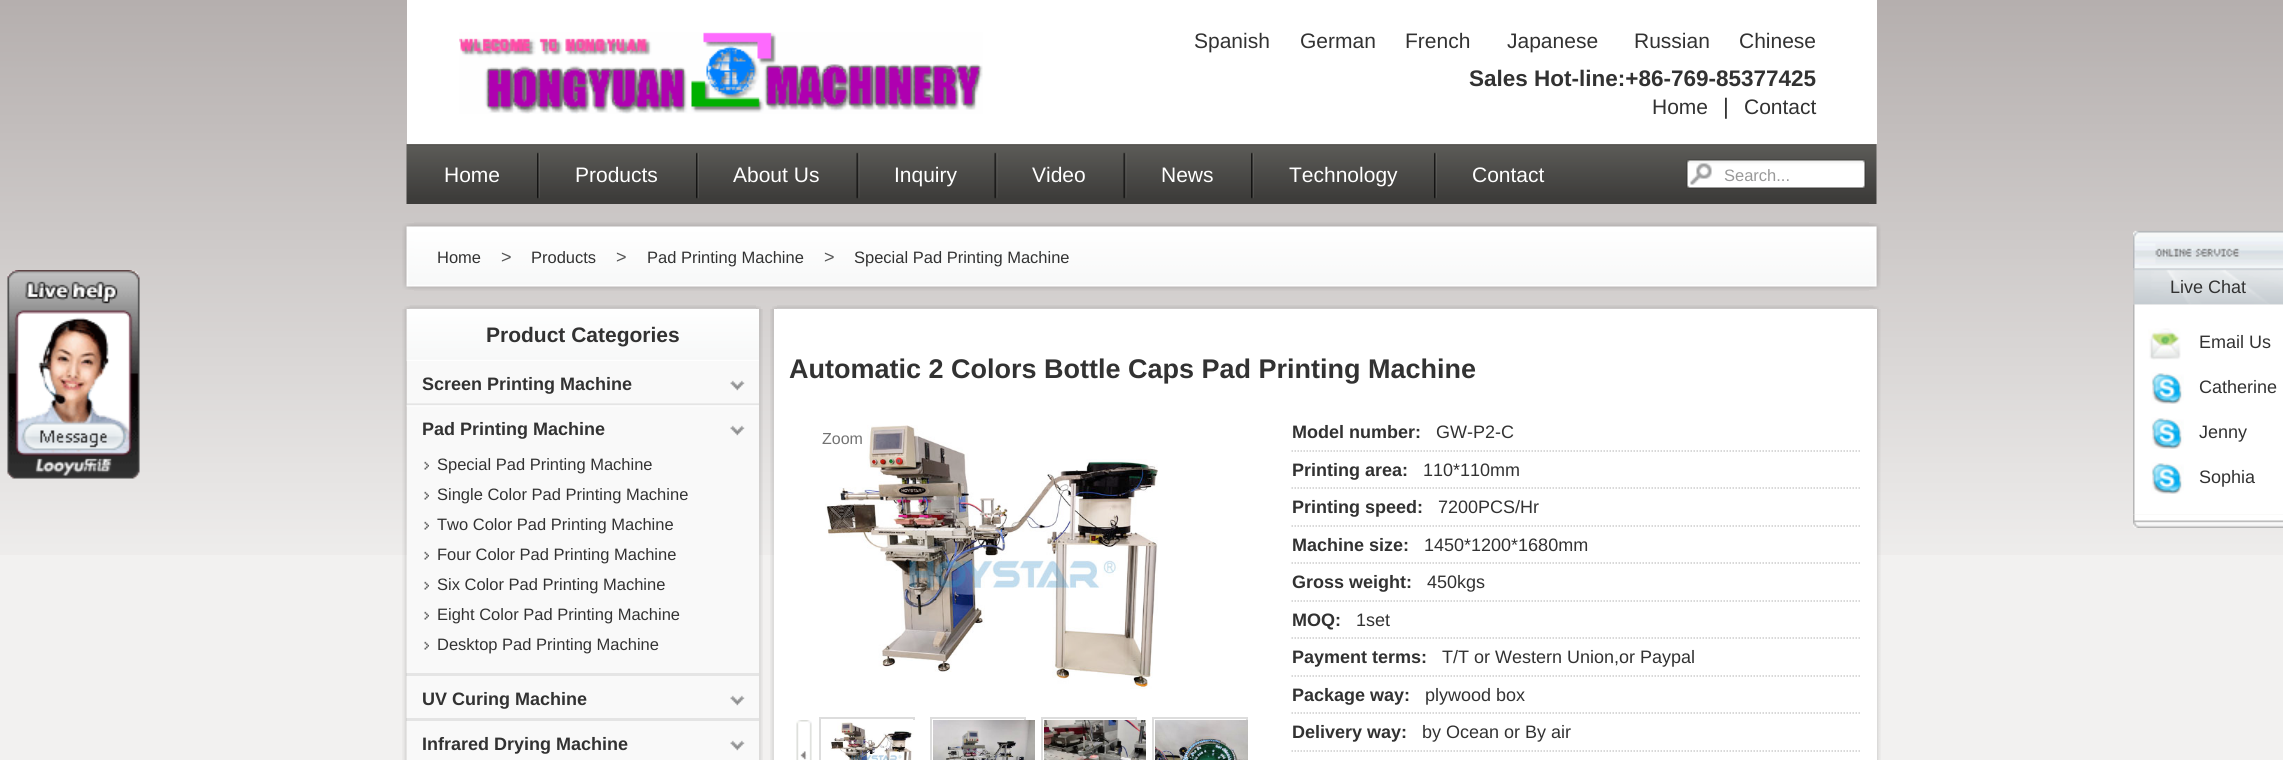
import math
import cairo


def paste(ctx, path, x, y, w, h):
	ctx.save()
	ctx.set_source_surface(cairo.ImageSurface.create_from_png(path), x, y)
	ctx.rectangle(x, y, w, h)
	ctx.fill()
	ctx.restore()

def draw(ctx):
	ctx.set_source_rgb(0.949, 0.945, 0.941)
	ctx.paint()
	paste(ctx, 'media/1.png', 0, 0, 2283, 555)
	paste(ctx, 'media/2.png', 7, 270, 133, 209)
	ctx.set_source_rgb(1, 1, 1)
	ctx.rectangle(407, 0, 1470, 144)
	ctx.fill()
	paste(ctx, 'media/3.png', 459, 32, 524, 82)
	ctx.select_font_face('Liberation Sans')
	ctx.set_font_size(21)
	ctx.set_source_rgb(0.196, 0.196, 0.196)
	for x, y, s in [
		(1194, 48, 'Spanish'),
		(1300, 48, 'German'),
		(1405, 48, 'French'),
		(1507, 48, 'Japanese'),
		(1634, 48, 'Russian'),
		(1739, 48, 'Chinese'),
	]:
		ctx.move_to(x, y)
		ctx.show_text(s)
	ctx.select_font_face('Liberation Sans', cairo.FONT_SLANT_NORMAL, cairo.FONT_WEIGHT_BOLD)
	ctx.set_font_size(22.5)
	ctx.move_to(1469, 86)
	ctx.show_text('Sales Hot-line:+86-769-85377425')
	ctx.select_font_face('Liberation Sans')
	ctx.set_font_size(21)
	ctx.move_to(1652, 114)
	ctx.show_text('Home')
	ctx.set_font_size(22.5)
	ctx.move_to(1723, 114)
	ctx.show_text('|')
	ctx.set_font_size(21)
	ctx.move_to(1744, 114)
	ctx.show_text('Contact')
	paste(ctx, 'media/4.png', 406, 144, 1471, 60)
	ctx.set_source_rgb(1, 1, 1)
	ctx.move_to(444, 182)
	ctx.show_text('Home')
	paste(ctx, 'media/5.png', 537, 152, 3, 47)
	ctx.move_to(575, 182)
	ctx.show_text('Products')
	paste(ctx, 'media/5.png', 696, 152, 3, 47)
	ctx.move_to(733, 182)
	ctx.show_text('About Us')
	paste(ctx, 'media/6.png', 856, 152, 4, 47)
	ctx.move_to(894, 182)
	ctx.show_text('Inquiry')
	paste(ctx, 'media/6.png', 994, 152, 4, 47)
	ctx.move_to(1032, 182)
	ctx.show_text('Video')
	paste(ctx, 'media/6.png', 1123, 152, 4, 47)
	ctx.move_to(1161, 182)
	ctx.show_text('News')
	paste(ctx, 'media/7.png', 1251, 152, 3, 47)
	ctx.move_to(1289, 182)
	ctx.show_text('Technology')
	paste(ctx, 'media/5.png', 1434, 152, 3, 47)
	ctx.move_to(1472, 182)
	ctx.show_text('Contact')
	paste(ctx, 'media/8.png', 1686, 159, 180, 30)
	paste(ctx, 'media/9.png', 1690, 163, 22, 22)
	ctx.set_font_size(16.5)
	ctx.set_source_rgb(0.6, 0.6, 0.6)
	ctx.move_to(1724, 181)
	ctx.show_text('Search...')
	paste(ctx, 'media/10.png', 402, 223, 12, 67)
	paste(ctx, 'media/11.png', 1869, 223, 12, 67)
	paste(ctx, 'media/12.png', 414, 222, 1455, 69)
	ctx.set_source_rgb(0.196, 0.196, 0.196)
	ctx.move_to(437, 263)
	ctx.show_text('Home')
	ctx.set_font_size(18)
	ctx.set_source_rgb(0.333, 0.333, 0.333)
	ctx.move_to(501, 263)
	ctx.show_text('>')
	ctx.set_font_size(16.5)
	ctx.set_source_rgb(0.196, 0.196, 0.196)
	ctx.move_to(531, 263)
	ctx.show_text('Products')
	ctx.set_font_size(18)
	ctx.set_source_rgb(0.333, 0.333, 0.333)
	ctx.move_to(616, 263)
	ctx.show_text('>')
	ctx.set_font_size(16.5)
	ctx.set_source_rgb(0.196, 0.196, 0.196)
	ctx.move_to(647, 263)
	ctx.show_text('Pad Printing Machine')
	ctx.set_font_size(18)
	ctx.set_source_rgb(0.333, 0.333, 0.333)
	ctx.move_to(824, 263)
	ctx.show_text('>')
	ctx.set_font_size(16.5)
	ctx.set_source_rgb(0.196, 0.196, 0.196)
	ctx.move_to(854, 263)
	ctx.show_text('Special Pad Printing Machine')
	paste(ctx, 'media/13.png', 404, 306, 6, 3)
	paste(ctx, 'media/14.png', 756, 306, 5, 3)
	paste(ctx, 'media/15.png', 409, 305, 347, 4)
	paste(ctx, 'media/16.png', 402, 309, 5, 451)
	paste(ctx, 'media/17.png', 759, 309, 4, 451)
	ctx.set_source_rgb(1, 1, 1)
	ctx.rectangle(407, 361, 352, 1)
	ctx.fill()
	paste(ctx, 'media/18.png', 406, 309, 353, 53)
	ctx.select_font_face('Liberation Sans', cairo.FONT_SLANT_NORMAL, cairo.FONT_WEIGHT_BOLD)
	ctx.set_font_size(21)
	ctx.set_source_rgb(0.196, 0.196, 0.196)
	ctx.move_to(486, 342)
	ctx.show_text('Product Categories')
	ctx.set_source_rgb(0.976, 0.976, 0.976)
	ctx.rectangle(407, 362, 352, 398)
	ctx.fill()
	paste(ctx, 'media/19.png', 406, 403, 353, 4)
	paste(ctx, 'media/20.png', 730, 380, 15, 11)
	ctx.set_font_size(18)
	ctx.set_source_rgb(0.196, 0.196, 0.196)
	ctx.move_to(422, 390)
	ctx.show_text('Screen Printing Machine')
	ctx.set_source_rgba(0.671, 0.671, 0.671, 0.25)
	ctx.rectangle(406, 673, 353, 3)
	ctx.fill()
	paste(ctx, 'media/20.png', 730, 425, 15, 11)
	ctx.set_source_rgb(0.196, 0.196, 0.196)
	ctx.move_to(422, 435)
	ctx.show_text('Pad Printing Machine')
	paste(ctx, 'media/21.png', 424, 461, 5, 10)
	ctx.select_font_face('Liberation Sans')
	ctx.set_font_size(16.5)
	ctx.move_to(437, 470)
	ctx.show_text('Special Pad Printing Machine')
	paste(ctx, 'media/21.png', 424, 491, 5, 10)
	ctx.move_to(437, 500)
	ctx.show_text('Single Color Pad Printing Machine')
	paste(ctx, 'media/21.png', 424, 521, 5, 10)
	ctx.move_to(437, 530)
	ctx.show_text('Two Color Pad Printing Machine')
	paste(ctx, 'media/21.png', 424, 551, 5, 10)
	ctx.move_to(437, 560)
	ctx.show_text('Four Color Pad Printing Machine')
	paste(ctx, 'media/21.png', 424, 581, 5, 10)
	ctx.move_to(437, 590)
	ctx.show_text('Six Color Pad Printing Machine')
	paste(ctx, 'media/21.png', 424, 611, 5, 10)
	ctx.move_to(437, 620)
	ctx.show_text('Eight Color Pad Printing Machine')
	paste(ctx, 'media/21.png', 424, 641, 5, 10)
	ctx.move_to(437, 650)
	ctx.show_text('Desktop Pad Printing Machine')
	ctx.set_source_rgba(0.655, 0.655, 0.655, 0.25)
	ctx.rectangle(406, 718, 353, 3)
	ctx.fill()
	paste(ctx, 'media/20.png', 730, 695, 15, 11)
	ctx.select_font_face('Liberation Sans', cairo.FONT_SLANT_NORMAL, cairo.FONT_WEIGHT_BOLD)
	ctx.set_font_size(18)
	ctx.set_source_rgb(0.196, 0.196, 0.196)
	ctx.move_to(422, 705)
	ctx.show_text('UV Curing Machine')
	paste(ctx, 'media/20.png', 730, 740, 15, 11)
	ctx.move_to(422, 750)
	ctx.show_text('Infrared Drying Machine')
	paste(ctx, 'media/22.png', 772, 306, 5, 3)
	paste(ctx, 'media/23.png', 1873, 306, 6, 3)
	paste(ctx, 'media/24.png', 777, 305, 1097, 4)
	paste(ctx, 'media/25.png', 770, 309, 4, 451)
	paste(ctx, 'media/26.png', 1877, 309, 4, 451)
	ctx.set_source_rgb(1, 1, 1)
	ctx.rectangle(774, 309, 1103, 451)
	ctx.fill()
	ctx.set_font_size(27)
	ctx.set_source_rgb(0.196, 0.196, 0.196)
	ctx.move_to(789, 378)
	ctx.show_text('Automatic 2 Colors Bottle Caps Pad Printing Machine')
	paste(ctx, 'media/27.png', 825, 425, 333, 264)
	ctx.select_font_face('Liberation Sans')
	ctx.set_font_size(16)
	ctx.set_source_rgb(0.451, 0.451, 0.451)
	ctx.move_to(822, 444)
	ctx.show_text('Zoom')
	paste(ctx, 'media/28.png', 796, 720, 16, 40)
	ctx.rectangle(820, 718, 94, 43)
	ctx.set_source_rgb(0.867, 0.867, 0.867)
	ctx.stroke()
	paste(ctx, 'media/29.png', 830, 720, 85, 40)
	ctx.rectangle(931, 718, 94, 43)
	ctx.stroke()
	paste(ctx, 'media/30.png', 933, 720, 102, 40)
	ctx.rectangle(1042, 718, 94, 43)
	ctx.stroke()
	paste(ctx, 'media/31.png', 1044, 720, 102, 40)
	ctx.rectangle(1153, 718, 94, 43)
	ctx.stroke()
	paste(ctx, 'media/32.png', 1155, 720, 93, 40)
	ctx.new_path()
	ctx.move_to(1291.5, 451)
	ctx.line_to(1861.5, 451)
	ctx.set_source_rgb(0.8, 0.8, 0.8)
	ctx.set_line_width(1.5)
	ctx.set_dash([1.5, 1.5])
	ctx.stroke()
	ctx.select_font_face('Liberation Sans', cairo.FONT_SLANT_NORMAL, cairo.FONT_WEIGHT_BOLD)
	ctx.set_font_size(18)
	ctx.set_source_rgb(0.196, 0.196, 0.196)
	ctx.move_to(1292, 438)
	ctx.show_text('Model number:')
	ctx.select_font_face('Liberation Sans')
	ctx.move_to(1436, 438)
	ctx.show_text('GW-P2-C')
	ctx.new_path()
	ctx.move_to(1291.5, 488)
	ctx.line_to(1861.5, 488)
	ctx.set_source_rgb(0.8, 0.8, 0.8)
	ctx.stroke()
	ctx.select_font_face('Liberation Sans', cairo.FONT_SLANT_NORMAL, cairo.FONT_WEIGHT_BOLD)
	ctx.set_source_rgb(0.196, 0.196, 0.196)
	ctx.move_to(1292, 476)
	ctx.show_text('Printing area:')
	ctx.select_font_face('Liberation Sans')
	ctx.move_to(1423, 476)
	ctx.show_text('110*110mm')
	ctx.new_path()
	ctx.move_to(1291.5, 526)
	ctx.line_to(1861.5, 526)
	ctx.set_source_rgb(0.8, 0.8, 0.8)
	ctx.stroke()
	ctx.select_font_face('Liberation Sans', cairo.FONT_SLANT_NORMAL, cairo.FONT_WEIGHT_BOLD)
	ctx.set_source_rgb(0.196, 0.196, 0.196)
	ctx.move_to(1292, 513)
	ctx.show_text('Printing speed:')
	ctx.select_font_face('Liberation Sans')
	ctx.move_to(1438, 513)
	ctx.show_text('7200PCS/Hr')
	ctx.new_path()
	ctx.move_to(1291.5, 563)
	ctx.line_to(1861.5, 563)
	ctx.set_source_rgb(0.8, 0.8, 0.8)
	ctx.stroke()
	ctx.select_font_face('Liberation Sans', cairo.FONT_SLANT_NORMAL, cairo.FONT_WEIGHT_BOLD)
	ctx.set_source_rgb(0.196, 0.196, 0.196)
	ctx.move_to(1292, 551)
	ctx.show_text('Machine size:')
	ctx.select_font_face('Liberation Sans')
	ctx.move_to(1424, 551)
	ctx.show_text('1450*1200*1680mm')
	ctx.new_path()
	ctx.move_to(1291.5, 601)
	ctx.line_to(1861.5, 601)
	ctx.set_source_rgb(0.8, 0.8, 0.8)
	ctx.stroke()
	ctx.select_font_face('Liberation Sans', cairo.FONT_SLANT_NORMAL, cairo.FONT_WEIGHT_BOLD)
	ctx.set_source_rgb(0.196, 0.196, 0.196)
	ctx.move_to(1292, 588)
	ctx.show_text('Gross weight:')
	ctx.select_font_face('Liberation Sans')
	ctx.move_to(1427, 588)
	ctx.show_text('450kgs')
	ctx.new_path()
	ctx.move_to(1291.5, 638)
	ctx.line_to(1861.5, 638)
	ctx.set_source_rgb(0.8, 0.8, 0.8)
	ctx.stroke()
	ctx.select_font_face('Liberation Sans', cairo.FONT_SLANT_NORMAL, cairo.FONT_WEIGHT_BOLD)
	ctx.set_source_rgb(0.196, 0.196, 0.196)
	ctx.move_to(1292, 626)
	ctx.show_text('MOQ:')
	ctx.select_font_face('Liberation Sans')
	ctx.move_to(1356, 626)
	ctx.show_text('1set')
	ctx.new_path()
	ctx.move_to(1291.5, 676)
	ctx.line_to(1861.5, 676)
	ctx.set_source_rgb(0.8, 0.8, 0.8)
	ctx.stroke()
	ctx.select_font_face('Liberation Sans', cairo.FONT_SLANT_NORMAL, cairo.FONT_WEIGHT_BOLD)
	ctx.set_source_rgb(0.196, 0.196, 0.196)
	ctx.move_to(1292, 663)
	ctx.show_text('Payment terms:')
	ctx.select_font_face('Liberation Sans')
	ctx.move_to(1442, 663)
	ctx.show_text('T/T or Western Union,or Paypal')
	ctx.new_path()
	ctx.move_to(1291.5, 713)
	ctx.line_to(1861.5, 713)
	ctx.set_source_rgb(0.8, 0.8, 0.8)
	ctx.stroke()
	ctx.select_font_face('Liberation Sans', cairo.FONT_SLANT_NORMAL, cairo.FONT_WEIGHT_BOLD)
	ctx.set_source_rgb(0.196, 0.196, 0.196)
	ctx.move_to(1292, 701)
	ctx.show_text('Package way:')
	ctx.select_font_face('Liberation Sans')
	ctx.move_to(1425, 701)
	ctx.show_text('plywood box')
	ctx.new_path()
	ctx.move_to(1291.5, 751)
	ctx.line_to(1861.5, 751)
	ctx.set_source_rgb(0.8, 0.8, 0.8)
	ctx.stroke()
	ctx.select_font_face('Liberation Sans', cairo.FONT_SLANT_NORMAL, cairo.FONT_WEIGHT_BOLD)
	ctx.set_source_rgb(0.196, 0.196, 0.196)
	ctx.move_to(1292, 738)
	ctx.show_text('Delivery way:')
	ctx.select_font_face('Liberation Sans')
	ctx.move_to(1422, 738)
	ctx.show_text('by Ocean or By air')
	paste(ctx, 'media/33.png', 2133, 230, 150, 39)
	paste(ctx, 'media/34.png', 2133, 268, 150, 37)
	ctx.move_to(2170, 293)
	ctx.show_text('Live Chat')
	paste(ctx, 'media/35.png', 2133, 304, 150, 211)
	paste(ctx, 'media/36.png', 2148, 328, 33, 32)
	ctx.move_to(2199, 348)
	ctx.show_text('Email Us')
	paste(ctx, 'media/37.png', 2151, 372, 33, 32)
	ctx.move_to(2199, 393)
	ctx.show_text('Catherine')
	paste(ctx, 'media/37.png', 2151, 417, 33, 32)
	ctx.move_to(2199, 438)
	ctx.show_text('Jenny')
	paste(ctx, 'media/37.png', 2151, 462, 33, 32)
	ctx.move_to(2199, 483)
	ctx.show_text('Sophia')
	paste(ctx, 'media/38.png', 2133, 514, 150, 14)


surface = cairo.ImageSurface(cairo.FORMAT_RGB24, 2283, 760)
ctx = cairo.Context(surface)
options = cairo.FontOptions()
options.set_hint_metrics(cairo.HINT_METRICS_OFF)
options.set_hint_style(cairo.HINT_STYLE_NONE)
ctx.set_font_options(options)
ctx.set_miter_limit(4)
draw(ctx)
surface.write_to_png('image.png')
